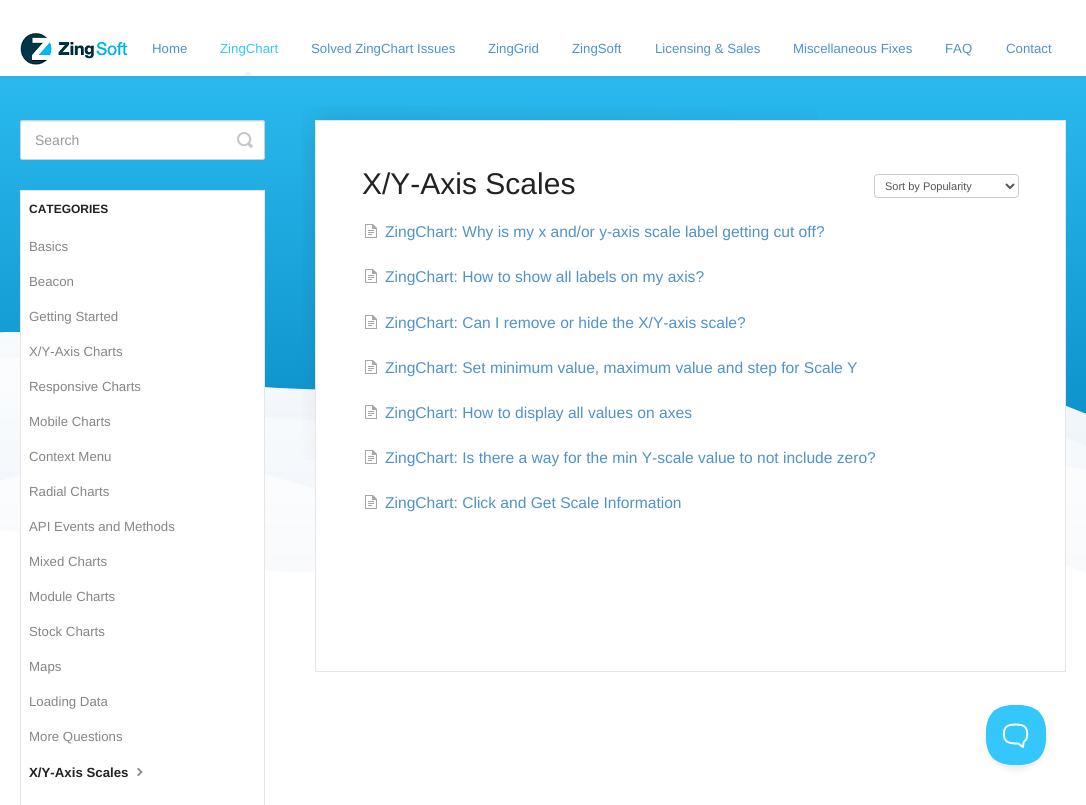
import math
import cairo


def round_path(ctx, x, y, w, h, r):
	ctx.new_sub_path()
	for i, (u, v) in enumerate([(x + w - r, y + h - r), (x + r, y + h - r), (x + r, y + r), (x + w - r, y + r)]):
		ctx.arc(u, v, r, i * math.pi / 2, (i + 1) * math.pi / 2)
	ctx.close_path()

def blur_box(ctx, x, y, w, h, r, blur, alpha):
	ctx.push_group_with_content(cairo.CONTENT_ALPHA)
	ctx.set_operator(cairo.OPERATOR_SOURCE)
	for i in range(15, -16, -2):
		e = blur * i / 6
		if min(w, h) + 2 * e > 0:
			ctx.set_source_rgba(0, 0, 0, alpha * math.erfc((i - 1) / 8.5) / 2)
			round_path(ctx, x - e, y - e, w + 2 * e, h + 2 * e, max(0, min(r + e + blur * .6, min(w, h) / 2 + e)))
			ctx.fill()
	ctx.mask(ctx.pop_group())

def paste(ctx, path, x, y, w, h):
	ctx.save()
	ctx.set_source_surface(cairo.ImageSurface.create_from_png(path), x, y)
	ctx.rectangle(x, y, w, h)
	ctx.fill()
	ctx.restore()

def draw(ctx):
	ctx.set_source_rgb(1, 1, 1)
	ctx.paint()
	paste(ctx, 'media/1.png', 0, 76, 1086, 497)
	ctx.set_source_rgb(0, 0, 0)
	blur_box(ctx, 0, 1, 1086, 76, 0, 2, 0.07)
	ctx.set_source_rgb(1, 1, 1)
	ctx.rectangle(0, 0, 1086, 76)
	ctx.fill()
	paste(ctx, 'media/2.png', 20, 32, 108, 33)
	ctx.select_font_face('Liberation Sans')
	ctx.set_font_size(13.25)
	ctx.set_source_rgb(0.31, 0.573, 0.792)
	ctx.move_to(152, 53)
	ctx.show_text('Home')
	ctx.set_source_rgb(0.204, 0.78, 0.984)
	ctx.move_to(220, 53)
	ctx.show_text('ZingChart')
	ctx.set_source_rgb(0.941, 0.941, 0.941)
	ctx.new_path()
	ctx.move_to(253, 76)
	ctx.line_to(243, 76)
	ctx.line_to(248, 71)
	ctx.close_path()
	ctx.fill()
	ctx.set_source_rgb(0.31, 0.573, 0.792)
	for x, y, s in [
		(311, 53, 'Solved ZingChart Issues'),
		(488, 53, 'ZingGrid'),
		(572, 53, 'ZingSoft'),
		(655, 53, 'Licensing & Sales'),
		(793, 53, 'Miscellaneous Fixes'),
		(945, 53, 'FAQ'),
		(1006, 53, 'Contact'),
	]:
		ctx.move_to(x, y)
		ctx.show_text(s)
	ctx.set_source_rgb(1, 1, 1)
	round_path(ctx, 20, 120, 245, 40, 3)
	ctx.fill()
	ctx.set_source_rgb(0.925, 0.925, 0.925)
	ctx.new_path()
	ctx.move_to(23, 122)
	ctx.line_to(262, 122)
	ctx.curve_to(263, 122, 264, 123, 264, 124)
	ctx.line_to(264, 122)
	ctx.line_to(262, 121)
	ctx.line_to(23, 121)
	ctx.curve_to(21, 121, 21, 123, 21, 124)
	ctx.curve_to(21, 123, 22, 122, 23, 122)
	ctx.close_path()
	ctx.fill()
	round_path(ctx, 20.5, 120.5, 244, 39, 2.5)
	ctx.set_source_rgb(0.816, 0.816, 0.816)
	ctx.set_line_width(1)
	ctx.stroke()
	ctx.set_font_size(14)
	ctx.set_source_rgb(0.6, 0.6, 0.6)
	ctx.move_to(35, 145)
	ctx.show_text('Search')
	paste(ctx, 'media/3.png', 237, 132, 16, 16)
	ctx.set_source_rgb(1, 1, 1)
	ctx.rectangle(21, 191, 243, 380)
	ctx.fill()
	ctx.set_source_rgb(0.914, 0.898, 0.898)
	ctx.rectangle(20, 190, 245, 1)
	ctx.rectangle(264, 190, 1, 615)
	ctx.rectangle(20, 190, 1, 615)
	ctx.fill()
	ctx.select_font_face('Liberation Sans', cairo.FONT_SLANT_NORMAL, cairo.FONT_WEIGHT_BOLD)
	ctx.set_font_size(12)
	ctx.set_source_rgb(0.133, 0.133, 0.133)
	ctx.move_to(29, 213)
	ctx.show_text('CATEGORIES')
	ctx.select_font_face('Liberation Sans')
	ctx.set_font_size(13.25)
	ctx.set_source_rgb(0.522, 0.522, 0.522)
	for x, y, s in [
		(29, 251, 'Basics'),
		(29, 286, 'Beacon'),
		(29, 321, 'Getting Started'),
		(29, 356, 'X/Y-Axis Charts'),
		(29, 391, 'Responsive Charts'),
		(29, 426, 'Mobile Charts'),
		(29, 461, 'Context Menu'),
		(29, 496, 'Radial Charts'),
		(29, 531, 'API Events and Methods'),
		(29, 566, 'Mixed Charts'),
		(29, 601, 'Module Charts'),
		(29, 636, 'Stock Charts'),
		(29, 671, 'Maps'),
		(29, 706, 'Loading Data'),
		(29, 741, 'More Questions'),
	]:
		ctx.move_to(x, y)
		ctx.show_text(s)
	ctx.select_font_face('Liberation Sans', cairo.FONT_SLANT_NORMAL, cairo.FONT_WEIGHT_BOLD)
	ctx.set_source_rgb(0.133, 0.133, 0.133)
	ctx.move_to(29, 777)
	ctx.show_text('X/Y-Axis Scales')
	paste(ctx, 'media/4.png', 137, 767, 6, 10)
	paste(ctx, 'media/5.png', 302, 106, 516, 354)
	ctx.set_source_rgb(1, 1, 1)
	ctx.rectangle(316, 121, 749, 451)
	ctx.fill()
	ctx.rectangle(315.5, 120.5, 750, 551)
	ctx.set_source_rgb(0.914, 0.898, 0.898)
	ctx.stroke()
	ctx.select_font_face('Liberation Sans')
	ctx.set_font_size(30)
	ctx.set_source_rgb(0.133, 0.133, 0.133)
	ctx.move_to(362, 194)
	ctx.show_text('X/Y-Axis Scales')
	round_path(ctx, 874.5, 174.5, 144, 23, 3.5)
	ctx.set_source_rgb(0.8, 0.8, 0.8)
	ctx.stroke()
	ctx.new_path()
	ctx.move_to(1006, 184)
	ctx.line_to(1010, 188)
	ctx.line_to(1014, 184)
	ctx.set_source_rgb(0.333, 0.333, 0.333)
	ctx.set_line_width(2)
	ctx.stroke()
	ctx.set_font_size(11)
	ctx.move_to(885, 190)
	ctx.show_text('Sort by Popularity')
	paste(ctx, 'media/6.png', 365, 224, 12, 14)
	ctx.set_font_size(15.6)
	ctx.set_source_rgb(0.31, 0.573, 0.792)
	ctx.move_to(385, 237)
	ctx.show_text('ZingChart: Why is my x and/or y-axis scale label getting cut off?')
	paste(ctx, 'media/6.png', 365, 269, 12, 14)
	ctx.move_to(385, 282)
	ctx.show_text('ZingChart: How to show all labels on my axis?')
	paste(ctx, 'media/6.png', 365, 315, 12, 14)
	ctx.move_to(385, 328)
	ctx.show_text('ZingChart: Can I remove or hide the X/Y-axis scale?')
	paste(ctx, 'media/6.png', 365, 360, 12, 14)
	ctx.move_to(385, 373)
	ctx.show_text('ZingChart: Set minimum value, maximum value and step for Scale Y')
	paste(ctx, 'media/6.png', 365, 405, 12, 14)
	ctx.move_to(385, 418)
	ctx.show_text('ZingChart: How to display all values on axes')
	paste(ctx, 'media/6.png', 365, 450, 12, 14)
	ctx.move_to(385, 463)
	ctx.show_text('ZingChart: Is there a way for the min Y-scale value to not include zero?')
	paste(ctx, 'media/6.png', 365, 495, 12, 14)
	ctx.move_to(385, 508)
	ctx.show_text('ZingChart: Click and Get Scale Information')
	ctx.set_source_rgb(0, 0, 0)
	blur_box(ctx, 986, 709, 60, 60, 30, 3.5, 0.1)
	paste(ctx, 'media/7.png', 986, 705, 60, 60)


surface = cairo.ImageSurface(cairo.FORMAT_RGB24, 1086, 805)
ctx = cairo.Context(surface)
options = cairo.FontOptions()
options.set_hint_metrics(cairo.HINT_METRICS_OFF)
options.set_hint_style(cairo.HINT_STYLE_NONE)
ctx.set_font_options(options)
ctx.set_miter_limit(4)
draw(ctx)
surface.write_to_png('image.png')
